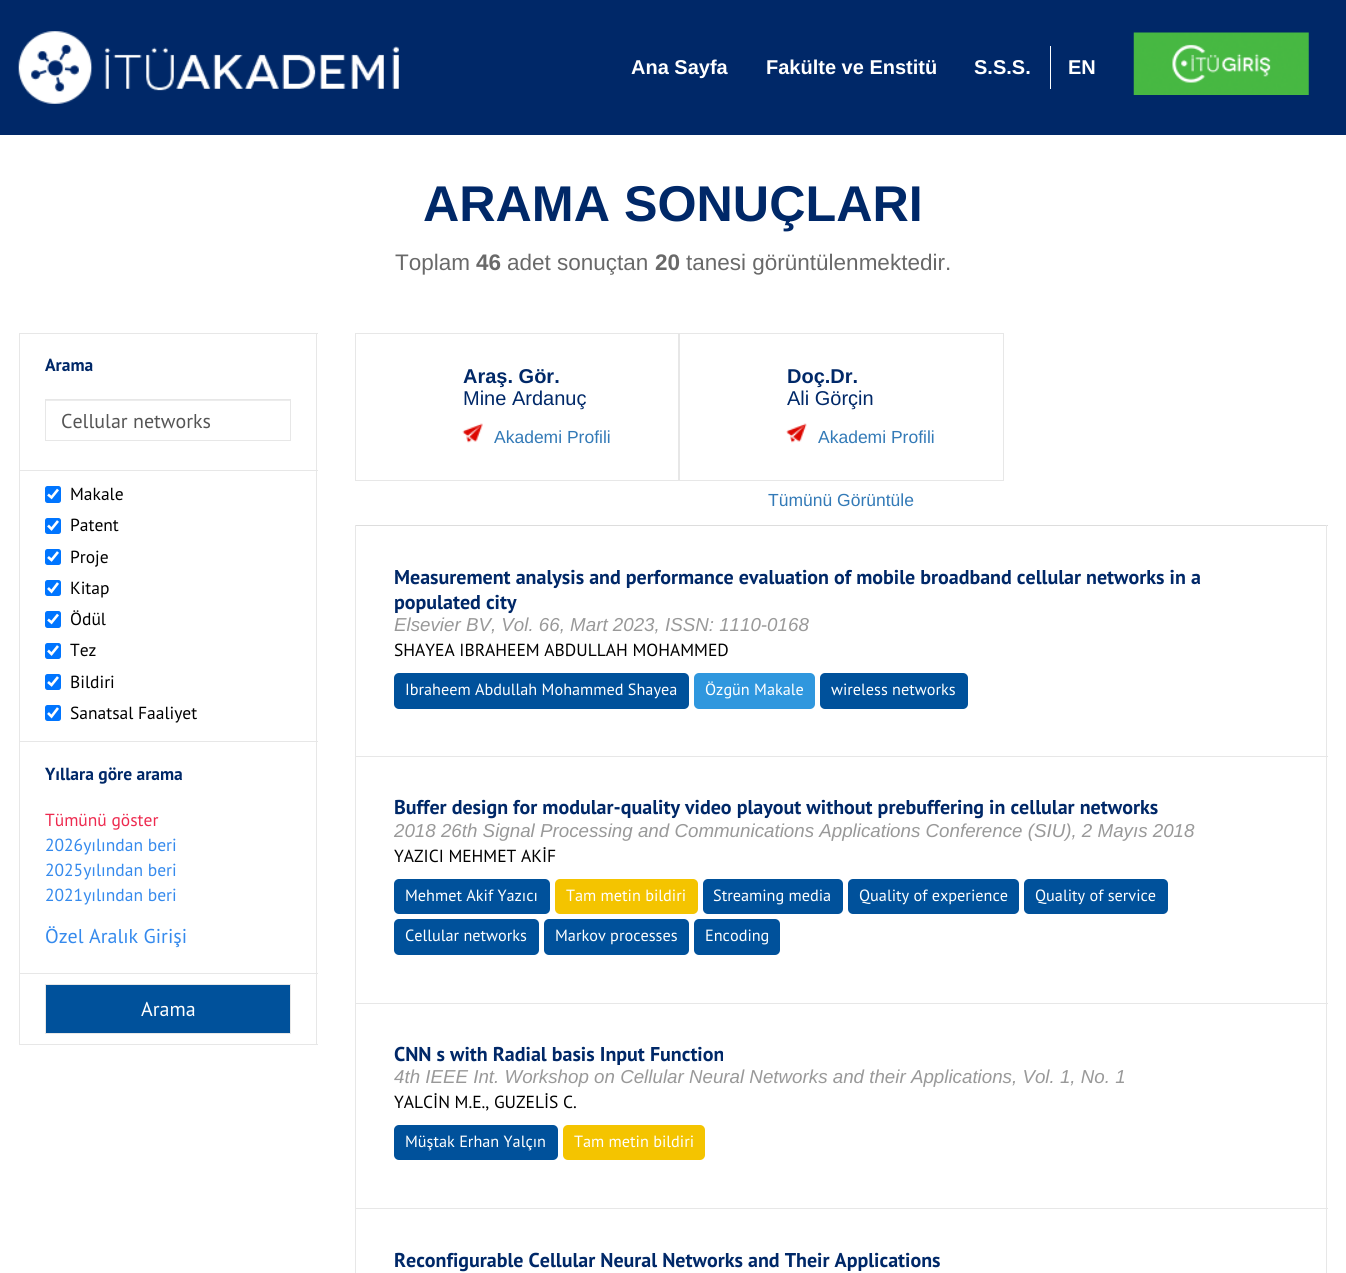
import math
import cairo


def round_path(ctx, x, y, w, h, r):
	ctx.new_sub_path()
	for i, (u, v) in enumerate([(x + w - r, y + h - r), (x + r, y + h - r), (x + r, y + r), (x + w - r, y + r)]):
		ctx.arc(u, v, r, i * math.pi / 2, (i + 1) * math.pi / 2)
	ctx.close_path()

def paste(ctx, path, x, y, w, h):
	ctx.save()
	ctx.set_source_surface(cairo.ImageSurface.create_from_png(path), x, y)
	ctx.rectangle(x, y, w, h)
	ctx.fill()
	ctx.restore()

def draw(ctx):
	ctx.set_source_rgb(1, 1, 1)
	ctx.paint()
	ctx.set_source_rgb(0, 0.157, 0.408)
	ctx.rectangle(0, 0, 1346, 135)
	ctx.fill()
	paste(ctx, 'media/1.png', 18, 31, 381, 73)
	ctx.select_font_face('Liberation Sans', cairo.FONT_SLANT_NORMAL, cairo.FONT_WEIGHT_BOLD)
	ctx.set_font_size(20)
	ctx.set_source_rgb(1, 1, 1)
	for x, y, s in [
		(631, 74, 'Ana Sayfa'),
		(766, 74, 'Fakülte ve Enstitü'),
		(974, 74, 'S.S.S.'),
	]:
		ctx.move_to(x, y)
		ctx.show_text(s)
	ctx.rectangle(1050, 46, 1, 43)
	ctx.fill()
	ctx.move_to(1068, 74)
	ctx.show_text('EN')
	paste(ctx, 'media/2.png', 1133, 32, 176, 63)
	ctx.set_font_size(50.25)
	ctx.set_source_rgb(0, 0.157, 0.408)
	ctx.move_to(423, 221)
	ctx.show_text('ARAMA SONUÇLARI')
	ctx.select_font_face('Liberation Sans')
	ctx.set_font_size(22.5)
	ctx.set_source_rgb(0.412, 0.412, 0.412)
	ctx.move_to(395, 270)
	ctx.show_text('Toplam')
	ctx.select_font_face('Liberation Sans', cairo.FONT_SLANT_NORMAL, cairo.FONT_WEIGHT_BOLD)
	ctx.move_to(476, 270)
	ctx.show_text('46')
	ctx.select_font_face('Liberation Sans')
	ctx.move_to(507, 270)
	ctx.show_text('adet sonuçtan')
	ctx.select_font_face('Liberation Sans', cairo.FONT_SLANT_NORMAL, cairo.FONT_WEIGHT_BOLD)
	ctx.move_to(655, 270)
	ctx.show_text('20')
	ctx.select_font_face('Liberation Sans')
	ctx.move_to(686, 270)
	ctx.show_text('tanesi görüntülenmektedir.')
	ctx.set_source_rgb(0.906, 0.906, 0.906)
	ctx.rectangle(19, 333, 299, 1)
	ctx.rectangle(19, 470, 299, 1)
	ctx.rectangle(19, 741, 299, 1)
	ctx.rectangle(19, 973, 299, 1)
	ctx.rectangle(316, 973, 1, 72)
	ctx.rectangle(316, 741, 1, 233)
	ctx.rectangle(316, 470, 1, 273)
	ctx.rectangle(316, 333, 1, 138)
	ctx.rectangle(19, 1044, 299, 1)
	ctx.rectangle(19, 973, 1, 72)
	ctx.rectangle(19, 741, 1, 233)
	ctx.rectangle(19, 470, 1, 273)
	ctx.rectangle(19, 333, 1, 138)
	ctx.fill()
	ctx.select_font_face('PT Sans', cairo.FONT_SLANT_NORMAL, cairo.FONT_WEIGHT_BOLD)
	ctx.set_font_size(17.5)
	ctx.set_source_rgb(0, 0.157, 0.408)
	ctx.move_to(45, 371)
	ctx.show_text('Arama')
	ctx.set_source_rgb(0.925, 0.925, 0.925)
	ctx.rectangle(46, 400, 244, 1)
	ctx.fill()
	ctx.rectangle(45.5, 399.5, 245, 41)
	ctx.set_source_rgb(0.906, 0.906, 0.906)
	ctx.set_line_width(1)
	ctx.stroke()
	ctx.select_font_face('PT Sans')
	ctx.set_font_size(20)
	ctx.set_source_rgb(0.333, 0.333, 0.333)
	ctx.move_to(61, 428)
	ctx.show_text('Cellular networks')
	ctx.set_source_rgb(0, 0.459, 1)
	round_path(ctx, 45, 486, 16, 17, 2.5)
	ctx.fill()
	ctx.new_path()
	ctx.move_to(48, 494.5)
	ctx.line_to(51.5, 497.5)
	ctx.line_to(58, 489.5)
	ctx.set_source_rgb(1, 1, 1)
	ctx.set_line_width(2.6)
	ctx.stroke()
	ctx.set_font_size(17.5)
	ctx.set_source_rgb(0, 0, 0)
	ctx.move_to(70, 500)
	ctx.show_text('Makale')
	ctx.set_source_rgb(0, 0.459, 1)
	round_path(ctx, 45, 518, 16, 16, 2.5)
	ctx.fill()
	ctx.new_path()
	ctx.move_to(48, 525.5)
	ctx.line_to(51.5, 529)
	ctx.line_to(58, 521)
	ctx.set_source_rgb(1, 1, 1)
	ctx.stroke()
	ctx.set_source_rgb(0, 0, 0)
	ctx.move_to(70, 531)
	ctx.show_text('Patent')
	ctx.set_source_rgb(0, 0.459, 1)
	round_path(ctx, 45, 549, 16, 16, 2.5)
	ctx.fill()
	ctx.new_path()
	ctx.move_to(48, 557)
	ctx.line_to(51.5, 560)
	ctx.line_to(58, 552)
	ctx.set_source_rgb(1, 1, 1)
	ctx.stroke()
	ctx.set_source_rgb(0, 0, 0)
	ctx.move_to(70, 563)
	ctx.show_text('Proje')
	ctx.set_source_rgb(0, 0.459, 1)
	round_path(ctx, 45, 580, 16, 16, 2.5)
	ctx.fill()
	ctx.new_path()
	ctx.move_to(48, 588)
	ctx.line_to(51.5, 591.5)
	ctx.line_to(58, 583)
	ctx.set_source_rgb(1, 1, 1)
	ctx.stroke()
	ctx.set_source_rgb(0, 0, 0)
	ctx.move_to(70, 594)
	ctx.show_text('Kitap')
	ctx.set_source_rgb(0, 0.459, 1)
	round_path(ctx, 45, 611, 16, 17, 2.5)
	ctx.fill()
	ctx.new_path()
	ctx.move_to(48, 619.5)
	ctx.line_to(51.5, 622.5)
	ctx.line_to(58, 614.5)
	ctx.set_source_rgb(1, 1, 1)
	ctx.stroke()
	ctx.set_source_rgb(0, 0, 0)
	ctx.move_to(70, 625)
	ctx.show_text('Ödül')
	ctx.set_source_rgb(0, 0.459, 1)
	round_path(ctx, 45, 643, 16, 16, 2.5)
	ctx.fill()
	ctx.new_path()
	ctx.move_to(48, 650.5)
	ctx.line_to(51.5, 654)
	ctx.line_to(58, 646)
	ctx.set_source_rgb(1, 1, 1)
	ctx.stroke()
	ctx.set_source_rgb(0, 0, 0)
	ctx.move_to(70, 656)
	ctx.show_text('Tez')
	ctx.set_source_rgb(0, 0.459, 1)
	round_path(ctx, 45, 674, 16, 16, 2.5)
	ctx.fill()
	ctx.new_path()
	ctx.move_to(48, 682)
	ctx.line_to(51.5, 685)
	ctx.line_to(58, 677)
	ctx.set_source_rgb(1, 1, 1)
	ctx.stroke()
	ctx.set_source_rgb(0, 0, 0)
	ctx.move_to(70, 688)
	ctx.show_text('Bildiri')
	ctx.set_source_rgb(0, 0.459, 1)
	round_path(ctx, 45, 705, 16, 16, 2.5)
	ctx.fill()
	ctx.new_path()
	ctx.move_to(48, 713)
	ctx.line_to(51.5, 716.5)
	ctx.line_to(58, 708)
	ctx.set_source_rgb(1, 1, 1)
	ctx.stroke()
	ctx.set_source_rgb(0, 0, 0)
	ctx.move_to(70, 719)
	ctx.show_text('Sanatsal Faaliyet')
	ctx.select_font_face('PT Sans', cairo.FONT_SLANT_NORMAL, cairo.FONT_WEIGHT_BOLD)
	ctx.set_source_rgb(0, 0.157, 0.408)
	ctx.move_to(45, 780)
	ctx.show_text('Yıllara göre arama')
	ctx.select_font_face('PT Sans')
	ctx.set_source_rgb(0.929, 0.165, 0.31)
	ctx.move_to(45, 826)
	ctx.show_text('Tümünü göster')
	ctx.set_source_rgb(0.208, 0.541, 0.929)
	for x, y, s in [
		(45, 851, '2026yılından beri'),
		(45, 876, '2025yılından beri'),
		(45, 901, '2021yılından beri'),
	]:
		ctx.move_to(x, y)
		ctx.show_text(s)
	ctx.set_font_size(20)
	ctx.move_to(45, 943)
	ctx.show_text('Özel Aralık Girişi')
	ctx.set_source_rgb(0, 0.318, 0.608)
	ctx.rectangle(45.5, 984.5, 245, 49)
	ctx.fill_preserve()
	ctx.set_source_rgb(0.906, 0.906, 0.906)
	ctx.set_line_width(1)
	ctx.stroke()
	ctx.set_source_rgb(1, 1, 1)
	ctx.move_to(141, 1016)
	ctx.show_text('Arama')
	ctx.rectangle(355.5, 333.5, 323, 147)
	ctx.set_source_rgb(0.906, 0.906, 0.906)
	ctx.stroke()
	ctx.select_font_face('Liberation Sans', cairo.FONT_SLANT_NORMAL, cairo.FONT_WEIGHT_BOLD)
	ctx.set_source_rgb(0, 0.157, 0.408)
	ctx.move_to(463, 383)
	ctx.show_text('Araş. Gör.')
	ctx.select_font_face('Liberation Sans')
	ctx.move_to(463, 405)
	ctx.show_text('Mine Ardanuç')
	paste(ctx, 'media/3.png', 462, 423, 21, 20)
	ctx.set_font_size(17.5)
	ctx.set_source_rgb(0.2, 0.478, 0.718)
	ctx.move_to(494, 443)
	ctx.show_text('Akademi Profili')
	ctx.rectangle(679.5, 333.5, 324, 147)
	ctx.set_source_rgb(0.906, 0.906, 0.906)
	ctx.stroke()
	ctx.select_font_face('Liberation Sans', cairo.FONT_SLANT_NORMAL, cairo.FONT_WEIGHT_BOLD)
	ctx.set_font_size(20)
	ctx.set_source_rgb(0, 0.157, 0.408)
	ctx.move_to(787, 383)
	ctx.show_text('Doç.Dr.')
	ctx.select_font_face('Liberation Sans')
	ctx.move_to(787, 405)
	ctx.show_text('Ali Görçin')
	paste(ctx, 'media/4.png', 786, 423, 21, 20)
	ctx.set_font_size(17.5)
	ctx.set_source_rgb(0.2, 0.478, 0.718)
	ctx.move_to(818, 443)
	ctx.show_text('Akademi Profili')
	ctx.move_to(768, 506)
	ctx.show_text('Tümünü Görüntüle')
	ctx.set_source_rgb(0.867, 0.867, 0.867)
	ctx.rectangle(355, 525, 973, 1)
	ctx.fill()
	ctx.set_source_rgb(0.906, 0.906, 0.906)
	ctx.rectangle(1326, 756, 1, 517)
	ctx.rectangle(1326, 525, 1, 233)
	ctx.rectangle(355, 1208, 1, 65)
	ctx.rectangle(355, 1208, 973, 1)
	ctx.rectangle(355, 1003, 1, 206)
	ctx.rectangle(355, 1003, 973, 1)
	ctx.rectangle(355, 756, 1, 248)
	ctx.rectangle(355, 756, 973, 1)
	ctx.rectangle(355, 525, 1, 233)
	ctx.fill()
	ctx.select_font_face('PT Sans', cairo.FONT_SLANT_NORMAL, cairo.FONT_WEIGHT_BOLD)
	ctx.set_font_size(20)
	ctx.set_source_rgb(0, 0.157, 0.408)
	ctx.move_to(394, 584)
	ctx.show_text('Measurement analysis and performance evaluation of mobile broadband cellular networks in a')
	ctx.move_to(394, 609)
	ctx.show_text('populated city')
	ctx.select_font_face('Liberation Sans', cairo.FONT_SLANT_ITALIC)
	ctx.set_font_size(18.75)
	ctx.set_source_rgb(0.6, 0.6, 0.6)
	ctx.move_to(394, 631)
	ctx.show_text('Elsevier BV, Vol. 66, Mart 2023, ISSN: 1110-0168')
	ctx.select_font_face('PT Sans')
	ctx.set_font_size(17.5)
	ctx.set_source_rgb(0, 0, 0)
	ctx.move_to(394, 656)
	ctx.show_text('SHAYEA IBRAHEEM ABDULLAH MOHAMMED')
	ctx.set_source_rgb(0, 0.318, 0.608)
	round_path(ctx, 394, 673, 295, 36, 5)
	ctx.fill()
	ctx.set_font_size(16.25)
	ctx.set_source_rgb(1, 1, 1)
	ctx.move_to(405, 695)
	ctx.show_text('Ibraheem Abdullah Mohammed Shayea')
	ctx.set_source_rgb(0.184, 0.592, 0.871)
	round_path(ctx, 694, 673, 121, 36, 5)
	ctx.fill()
	ctx.set_source_rgb(1, 1, 1)
	ctx.move_to(705, 695)
	ctx.show_text('Özgün Makale')
	ctx.set_source_rgb(0, 0.318, 0.608)
	round_path(ctx, 820, 673, 148, 36, 5)
	ctx.fill()
	ctx.set_source_rgb(1, 1, 1)
	ctx.move_to(831, 695)
	ctx.show_text('wireless networks')
	ctx.select_font_face('PT Sans', cairo.FONT_SLANT_NORMAL, cairo.FONT_WEIGHT_BOLD)
	ctx.set_font_size(20)
	ctx.set_source_rgb(0, 0.157, 0.408)
	ctx.move_to(394, 814)
	ctx.show_text('Buffer design for modular-quality video playout without prebuffering in cellular networks')
	ctx.select_font_face('Liberation Sans', cairo.FONT_SLANT_ITALIC)
	ctx.set_font_size(18.75)
	ctx.set_source_rgb(0.6, 0.6, 0.6)
	ctx.move_to(394, 837)
	ctx.show_text('2018 26th Signal Processing and Communications Applications Conference (SIU), 2 Mayıs 2018')
	ctx.select_font_face('PT Sans')
	ctx.set_font_size(17.5)
	ctx.set_source_rgb(0, 0, 0)
	ctx.move_to(394, 862)
	ctx.show_text('YAZICI MEHMET AKİF')
	ctx.set_source_rgb(0, 0.318, 0.608)
	round_path(ctx, 394, 879, 156, 35, 5)
	ctx.fill()
	ctx.set_font_size(16.25)
	ctx.set_source_rgb(1, 1, 1)
	ctx.move_to(405, 901)
	ctx.show_text('Mehmet Akif Yazıcı')
	ctx.set_source_rgb(0.957, 0.769, 0)
	round_path(ctx, 555, 879, 143, 35, 5)
	ctx.fill()
	ctx.set_source_rgb(1, 1, 1)
	ctx.move_to(566, 901)
	ctx.show_text('Tam metin bildiri')
	ctx.set_source_rgb(0, 0.318, 0.608)
	round_path(ctx, 703, 879, 140, 35, 5)
	ctx.fill()
	ctx.set_source_rgb(1, 1, 1)
	ctx.move_to(713, 901)
	ctx.show_text('Streaming media')
	ctx.set_source_rgb(0, 0.318, 0.608)
	round_path(ctx, 848, 879, 171, 35, 5)
	ctx.fill()
	ctx.set_source_rgb(1, 1, 1)
	ctx.move_to(859, 901)
	ctx.show_text('Quality of experience')
	ctx.set_source_rgb(0, 0.318, 0.608)
	round_path(ctx, 1024, 879, 144, 35, 5)
	ctx.fill()
	ctx.set_source_rgb(1, 1, 1)
	ctx.move_to(1035, 901)
	ctx.show_text('Quality of service')
	ctx.set_source_rgb(0, 0.318, 0.608)
	round_path(ctx, 394, 919, 145, 36, 5)
	ctx.fill()
	ctx.set_source_rgb(1, 1, 1)
	ctx.move_to(405, 941)
	ctx.show_text('Cellular networks')
	ctx.set_source_rgb(0, 0.318, 0.608)
	round_path(ctx, 544, 919, 145, 36, 5)
	ctx.fill()
	ctx.set_source_rgb(1, 1, 1)
	ctx.move_to(555, 941)
	ctx.show_text('Markov processes')
	ctx.set_source_rgb(0, 0.318, 0.608)
	round_path(ctx, 694, 919, 86, 36, 5)
	ctx.fill()
	ctx.set_source_rgb(1, 1, 1)
	ctx.move_to(705, 941)
	ctx.show_text('Encoding')
	ctx.select_font_face('PT Sans', cairo.FONT_SLANT_NORMAL, cairo.FONT_WEIGHT_BOLD)
	ctx.set_font_size(20)
	ctx.set_source_rgb(0, 0.157, 0.408)
	ctx.move_to(394, 1061)
	ctx.show_text('CNN s with Radial basis Input Function')
	ctx.select_font_face('Liberation Sans', cairo.FONT_SLANT_ITALIC)
	ctx.set_font_size(18.75)
	ctx.set_source_rgb(0.6, 0.6, 0.6)
	ctx.move_to(394, 1083)
	ctx.show_text('4th IEEE Int. Workshop on Cellular Neural Networks and their Applications, Vol. 1, No. 1')
	ctx.select_font_face('PT Sans')
	ctx.set_font_size(17.5)
	ctx.set_source_rgb(0, 0, 0)
	ctx.move_to(394, 1108)
	ctx.show_text('YALCİN M.E., GUZELİS C.')
	ctx.set_source_rgb(0, 0.318, 0.608)
	round_path(ctx, 394, 1125, 164, 35, 5)
	ctx.fill()
	ctx.set_font_size(16.25)
	ctx.set_source_rgb(1, 1, 1)
	ctx.move_to(405, 1147)
	ctx.show_text('Müştak Erhan Yalçın')
	ctx.set_source_rgb(0.957, 0.769, 0)
	round_path(ctx, 563, 1125, 142, 35, 5)
	ctx.fill()
	ctx.set_source_rgb(1, 1, 1)
	ctx.move_to(574, 1147)
	ctx.show_text('Tam metin bildiri')
	ctx.select_font_face('PT Sans', cairo.FONT_SLANT_NORMAL, cairo.FONT_WEIGHT_BOLD)
	ctx.set_font_size(20)
	ctx.set_source_rgb(0, 0.157, 0.408)
	ctx.move_to(394, 1267)
	ctx.show_text('Reconfigurable Cellular Neural Networks and Their Applications')


surface = cairo.ImageSurface(cairo.FORMAT_RGB24, 1346, 1273)
ctx = cairo.Context(surface)
options = cairo.FontOptions()
options.set_hint_metrics(cairo.HINT_METRICS_OFF)
options.set_hint_style(cairo.HINT_STYLE_NONE)
ctx.set_font_options(options)
ctx.set_miter_limit(4)
draw(ctx)
surface.write_to_png('image.png')
